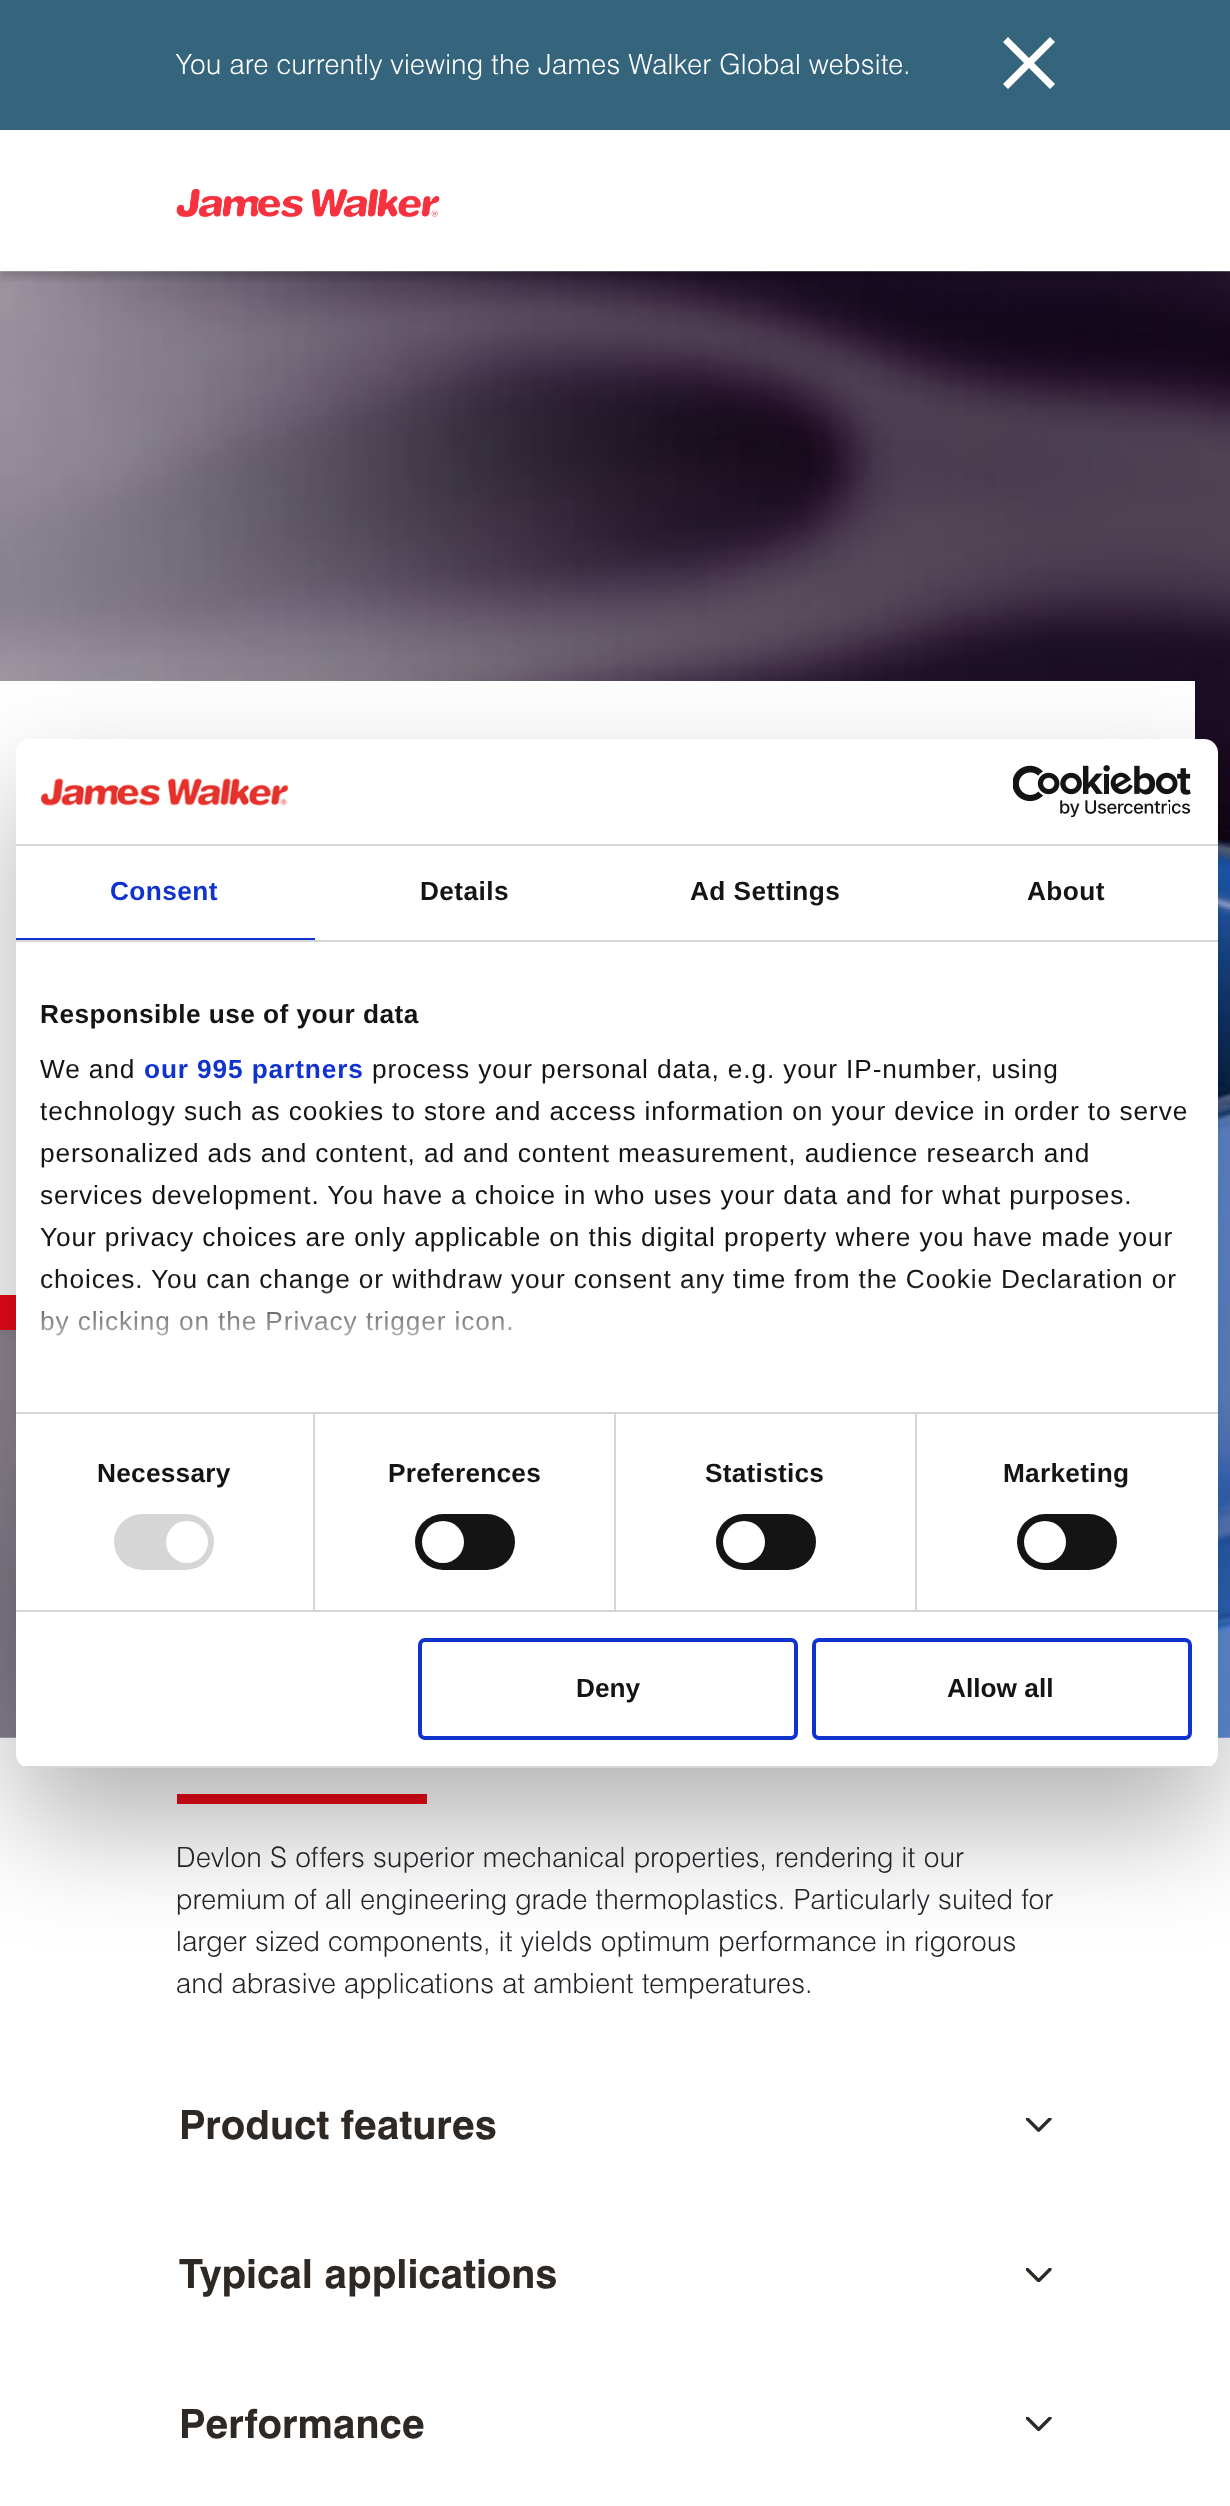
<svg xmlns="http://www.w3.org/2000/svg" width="1230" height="2506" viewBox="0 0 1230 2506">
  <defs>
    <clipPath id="clip1"><rect x="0" y="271" width="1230" height="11"/></clipPath>
    <linearGradient id="g1" gradientUnits="userSpaceOnUse" x1="605" y1="1412" x2="605" y2="1281"><stop offset="0" stop-color="rgb(255,255,255)"/><stop offset="0.5" stop-color="rgb(255,255,255)" stop-opacity="0.8"/><stop offset="1" stop-color="rgb(255,255,255)" stop-opacity="0"/></linearGradient>
    <clipPath id="clip2"><rect x="16" y="739" width="1202" height="1029" rx="14"/></clipPath>
  </defs>
  <rect width="100%" height="100%" fill="rgb(255,255,255)"/>
  <image x="0" y="271" width="1230" height="1467" href="pic4.png"/>
  <g clip-path="url(#clip1)">
    <rect x="0" y="137" width="1230" height="141" fill="rgba(0,0,0,0.15)" filter="blur(3.5px)"/>
  </g>
  <rect x="0" y="0" width="1230" height="130" fill="rgb(53,100,125)"/>
  <text x="176" y="74" font-family="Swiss" font-size="28" font-weight="300" letter-spacing="0.42" fill="rgb(255,255,255)">You are currently viewing the James Walker Global website.</text>
  <path d="M1055 42L1050 37L1029 58L1008 37L1003 42L1024 63L1003 84L1008 89L1029 68L1050 89L1055 84L1034 63Z" fill="rgb(255,255,255)"/>
  <image x="176" y="189" width="264" height="28" href="pic1.png"/>
  <rect x="0" y="681" width="1195" height="614" fill="rgb(255,255,255)"/>
  <rect x="0" y="1295" width="16" height="35" fill="rgb(237,10,24)"/>
  <rect x="177" y="1794" width="250" height="10" fill="rgb(237,10,24)"/>
  <rect x="16" y="795" width="1202" height="1029" rx="14" fill="rgba(0,0,0,0.3)" filter="blur(59.5px)"/>
  <rect x="16" y="739" width="1202" height="1029" rx="14" fill="rgb(255,255,255)"/>
  <rect x="16" y="844" width="1202" height="2" fill="rgb(214,214,214)"/>
  <image x="41" y="778" width="247" height="28" href="pic2.png"/>
  <image x="1013" y="765" width="178" height="52" href="pic3.png"/>
  <rect x="16" y="940" width="1202" height="2" fill="rgb(214,214,214)"/>
  <rect x="16" y="938" width="299" height="2" fill="rgb(16,50,207)"/>
  <text x="110" y="900" font-family="Liberation Sans" font-size="26.25" font-weight="bold" letter-spacing="0.4" fill="rgb(16,50,207)">Consent</text>
  <g font-family="Liberation Sans" font-size="26.25" font-weight="bold" letter-spacing="0.4" fill="rgb(20,20,20)">
    <text x="420" y="900">Details</text>
    <text x="690" y="900">Ad Settings</text>
    <text x="1027" y="900">About</text>
  </g>
  <rect x="16" y="1412" width="1202" height="2" fill="rgb(214,214,214)"/>
  <text x="40" y="1023" font-family="Liberation Sans" font-size="26.25" font-weight="bold" letter-spacing="0.45" fill="rgb(20,20,20)">Responsible use of your data</text>
  <text x="40" y="1078" font-family="Liberation Sans" font-size="26.25" letter-spacing="0.88" fill="rgb(20,20,20)">We and</text>
  <text x="144" y="1078" font-family="Liberation Sans" font-size="26.25" font-weight="bold" letter-spacing="0.88" fill="rgb(16,50,207)">our 995 partners</text>
  <g font-family="Liberation Sans" font-size="26.25" letter-spacing="0.88" fill="rgb(20,20,20)">
    <text x="372" y="1078">process your personal data, e.g. your IP-number, using</text>
    <text>
      <tspan x="40" y="1120">technology such as cookies to store and access information on your device in order to serve</tspan>
      <tspan x="40" y="1162">personalized ads and content, ad and content measurement, audience research and</tspan>
      <tspan x="40" y="1204">services development. You have a choice in who uses your data and for what purposes.</tspan>
      <tspan x="40" y="1246">Your privacy choices are only applicable on this digital property where you have made your</tspan>
      <tspan x="40" y="1288">choices. You can change or withdraw your consent any time from the Cookie Declaration or</tspan>
      <tspan x="40" y="1330">by clicking on the Privacy trigger icon.</tspan>
    </text>
  </g>
  <rect x="41" y="1283" width="1130" height="53" fill="url(#g1)"/>
  <rect x="16" y="1610" width="1202" height="2" fill="rgb(214,214,214)"/>
  <rect x="313" y="1414" width="2" height="196" fill="rgb(214,214,214)"/>
  <text x="97" y="1482" font-family="Liberation Sans" font-size="26.25" font-weight="bold" letter-spacing="0.25" fill="rgb(20,20,20)">Necessary</text>
  <rect x="114" y="1514" width="100" height="56" rx="28" fill="rgb(214,214,214)"/>
  <circle cx="187" cy="1542" r="21" fill="rgb(255,255,255)"/>
  <rect x="614" y="1414" width="2" height="196" fill="rgb(214,214,214)"/>
  <text x="388" y="1482" font-family="Liberation Sans" font-size="26.25" font-weight="bold" letter-spacing="0.25" fill="rgb(20,20,20)">Preferences</text>
  <rect x="415" y="1514" width="100" height="56" rx="28" fill="rgb(20,20,20)"/>
  <circle cx="443" cy="1542" r="21" fill="rgb(255,255,255)"/>
  <rect x="915" y="1414" width="2" height="196" fill="rgb(214,214,214)"/>
  <text x="705" y="1482" font-family="Liberation Sans" font-size="26.25" font-weight="bold" letter-spacing="0.25" fill="rgb(20,20,20)">Statistics</text>
  <rect x="716" y="1514" width="100" height="56" rx="28" fill="rgb(20,20,20)"/>
  <circle cx="744" cy="1542" r="21" fill="rgb(255,255,255)"/>
  <text x="1003" y="1482" font-family="Liberation Sans" font-size="26.25" font-weight="bold" letter-spacing="0.25" fill="rgb(20,20,20)">Marketing</text>
  <rect x="1017" y="1514" width="100" height="56" rx="28" fill="rgb(20,20,20)"/>
  <circle cx="1045" cy="1542" r="21" fill="rgb(255,255,255)"/>
  <g clip-path="url(#clip2)">
    <rect x="16" y="1766" width="1202" height="2" fill="rgb(214,214,214)"/>
  </g>
  <rect x="420" y="1640" width="376" height="98" rx="5" fill="none" stroke="rgb(16,50,207)" stroke-width="4"/>
  <text x="576" y="1697" font-family="Liberation Sans" font-size="26.25" font-weight="bold" fill="rgb(20,20,20)">Deny</text>
  <rect x="814" y="1640" width="376" height="98" rx="5" fill="none" stroke="rgb(16,50,207)" stroke-width="4"/>
  <text x="947" y="1697" font-family="Liberation Sans" font-size="26.25" font-weight="bold" fill="rgb(20,20,20)">Allow all</text>
  <g font-family="Swiss" font-size="28" font-weight="300" letter-spacing="0.42" fill="rgb(33,37,41)">
    <text>
      <tspan x="176" y="1867">Devlon S offers superior mechanical properties, rendering it our</tspan>
      <tspan x="176" y="1909">premium of all engineering grade thermoplastics. Particularly suited for</tspan>
      <tspan x="176" y="1951">larger sized components, it yields optimum performance in rigorous</tspan>
      <tspan x="176" y="1993">and abrasive applications at ambient temperatures.</tspan>
    </text>
  </g>
  <text x="179" y="2139" font-family="Swiss" font-size="40.25" font-weight="bold" fill="rgb(46,41,37)">Product features</text>
  <image x="1026" y="2118" width="26" height="14" href="pic5.png"/>
  <text x="179" y="2288" font-family="Swiss" font-size="40.25" font-weight="bold" fill="rgb(46,41,37)">Typical applications</text>
  <image x="1026" y="2268" width="26" height="14" href="pic6.png"/>
  <text x="179" y="2438" font-family="Swiss" font-size="40.25" font-weight="bold" fill="rgb(46,41,37)">Performance</text>
  <image x="1026" y="2417" width="26" height="15" href="pic7.png"/>
</svg>
